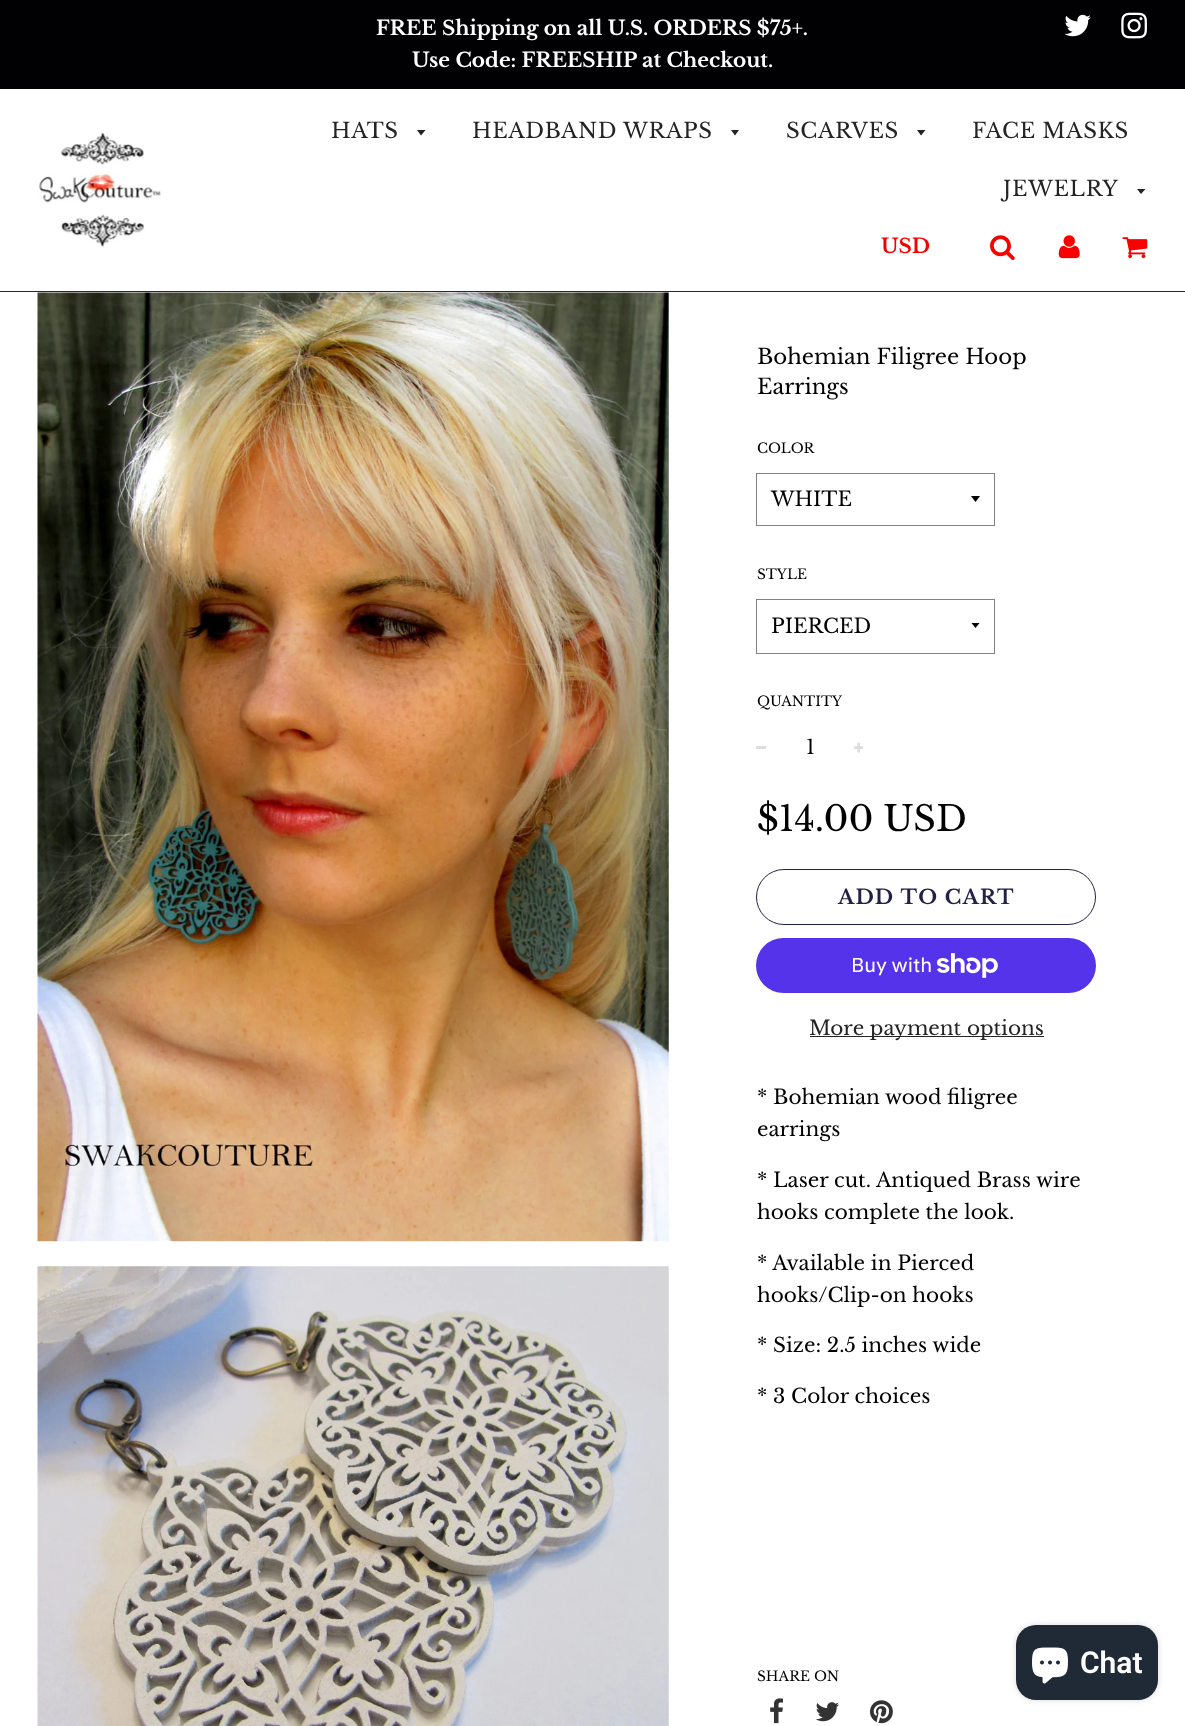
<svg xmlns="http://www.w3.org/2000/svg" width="1185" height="1726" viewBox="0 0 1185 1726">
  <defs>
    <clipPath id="clip1"><rect x="971" y="623" width="10" height="6"/></clipPath>
  </defs>
  <rect width="100%" height="100%" fill="rgb(255,255,255)"/>
  <rect x="0" y="0" width="1185" height="89" fill="rgb(1,1,3)"/>
  <g font-family="Libre Baskerville" font-size="20" font-weight="bold" fill="rgb(255,255,255)">
    <text x="376" y="35">FREE Shipping on all U.S. ORDERS $75+.</text>
    <text x="412" y="67">Use Code: FREESHIP at Checkout.</text>
  </g>
  <image x="1064" y="14" width="27" height="23" href="pic1.png"/>
  <image x="1121" y="12" width="26" height="27" href="pic2.png"/>
  <rect x="0" y="291" width="1185" height="1" fill="rgb(40,40,40)"/>
  <image x="38" y="133" width="123" height="114" href="pic3.png"/>
  <text x="331" y="138" font-family="Libre Baskerville" font-size="21.25" letter-spacing="0.6" fill="rgb(36,36,36)">HATS</text>
  <path d="M417 130L421 135.5L425.5 130Z" fill="rgb(36,36,36)"/>
  <text x="472" y="138" font-family="Libre Baskerville" font-size="21.25" letter-spacing="0.6" fill="rgb(36,36,36)">HEADBAND WRAPS</text>
  <path d="M731 130L735 135.5L739 130Z" fill="rgb(36,36,36)"/>
  <text x="786" y="138" font-family="Libre Baskerville" font-size="21.25" letter-spacing="0.6" fill="rgb(36,36,36)">SCARVES</text>
  <path d="M917 130L921 135.5L925.5 130Z" fill="rgb(36,36,36)"/>
  <g font-family="Libre Baskerville" font-size="21.25" letter-spacing="0.6" fill="rgb(36,36,36)">
    <text x="972" y="138">FACE MASKS</text>
    <text x="1003" y="196">JEWELRY</text>
  </g>
  <path d="M1137 189L1141 194L1145.5 189Z" fill="rgb(36,36,36)"/>
  <text x="881" y="253" font-family="Libre Baskerville" font-size="20" font-weight="bold" fill="rgb(248,0,0)">USD</text>
  <image x="990" y="235" width="25" height="25" href="pic4.png"/>
  <image x="1058" y="235" width="22" height="24" href="pic5.png"/>
  <image x="1122" y="237" width="26" height="22" href="pic6.png"/>
  <image x="37" y="292" width="632" height="950" href="pic7.png"/>
  <image x="37" y="1266" width="632" height="460" href="pic8.png"/>
  <g font-family="Libre Baskerville" font-size="21.25" fill="rgb(0,0,0)">
    <text>
      <tspan x="757" y="364">Bohemian Filigree Hoop</tspan>
      <tspan x="757" y="394">Earrings</tspan>
    </text>
  </g>
  <text x="757" y="453" font-family="Libre Baskerville" font-size="13.75" fill="rgb(0,0,0)">COLOR</text>
  <path d="M971 496L975.5 502L980 496Z" fill="rgb(0,0,0)"/>
  <rect x="756.5" y="473.5" width="238" height="52" fill="none" stroke="rgb(128,128,128)"/>
  <text x="771" y="506" font-family="Libre Baskerville" font-size="20" fill="rgb(0,0,0)">WHITE</text>
  <text x="757" y="579" font-family="Libre Baskerville" font-size="13.75" fill="rgb(0,0,0)">STYLE</text>
  <g clip-path="url(#clip1)">
    <path d="M971 622.5L975.5 628L980 622.5Z" fill="rgb(0,0,0)"/>
  </g>
  <rect x="756.5" y="599.5" width="238" height="54" fill="none" stroke="rgb(128,128,128)"/>
  <text x="771" y="633" font-family="Libre Baskerville" font-size="20" fill="rgb(0,0,0)">PIERCED</text>
  <text x="757" y="706" font-family="Libre Baskerville" font-size="13.75" fill="rgb(0,0,0)">QUANTITY</text>
  <rect x="756" y="746" width="10" height="3" fill="rgb(222,222,222)"/>
  <text x="806" y="754" font-family="Libre Baskerville" font-size="20" fill="rgb(0,0,0)">1</text>
  <image x="854" y="742" width="9" height="11" href="pic9.png"/>
  <text x="757" y="831" font-family="Libre Baskerville" font-size="35" fill="rgb(0,0,0)">$14.00 USD</text>
  <rect x="756.5" y="869.5" width="339" height="55" rx="27.5" fill="none" stroke="rgb(34,34,70)"/>
  <text x="838" y="904" font-family="Libre Baskerville" font-size="20" font-weight="bold" letter-spacing="1.25" fill="rgb(34,34,70)">ADD TO CART</text>
  <rect x="756" y="938" width="340" height="55" rx="27.5" fill="rgb(84,51,235)"/>
  <text x="851" y="972" font-family="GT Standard" font-size="20" fill="rgb(255,255,255)">Buy with</text>
  <image x="936" y="953" width="62" height="25" href="pic10.png"/>
  <rect x="810" y="1036" width="234" height="1" fill="rgb(36,36,36)"/>
  <text x="809" y="1035" font-family="Libre Baskerville" font-size="20" fill="rgb(36,36,36)">More payment options</text>
  <g font-family="Libre Baskerville" font-size="20" fill="rgb(0,0,0)">
    <text>
      <tspan x="757" y="1104">* Bohemian wood filigree</tspan>
      <tspan x="757" y="1136">earrings</tspan>
    </text>
    <text>
      <tspan x="757" y="1187">* Laser cut. Antiqued Brass wire</tspan>
      <tspan x="757" y="1219">hooks complete the look.</tspan>
    </text>
    <text>
      <tspan x="757" y="1270">* Available in Pierced</tspan>
      <tspan x="757" y="1302">hooks/Clip-on hooks</tspan>
    </text>
    <text x="757" y="1352">* Size: 2.5 inches wide</text>
    <text x="757" y="1403">* 3 Color choices</text>
  </g>
  <text x="757" y="1681" font-family="Libre Baskerville" font-size="13.75" fill="rgb(0,0,0)">SHARE ON</text>
  <image x="770" y="1698" width="13" height="26" href="pic11.png"/>
  <image x="815" y="1702" width="24" height="20" href="pic12.png"/>
  <image x="870" y="1700" width="23" height="24" href="pic13.png"/>
  <rect x="1016" y="1625" width="142" height="75" rx="20" fill="rgba(0,0,0,0.15)" filter="blur(3px)"/>
  <rect x="1016" y="1625" width="142" height="75" rx="20" fill="rgb(32,42,54)"/>
  <image x="1032" y="1647" width="36" height="37" href="pic14.png"/>
  <text x="1080" y="1673" font-family="Roboto" font-size="30" font-weight="600" fill="rgb(255,255,255)">Chat</text>
</svg>
